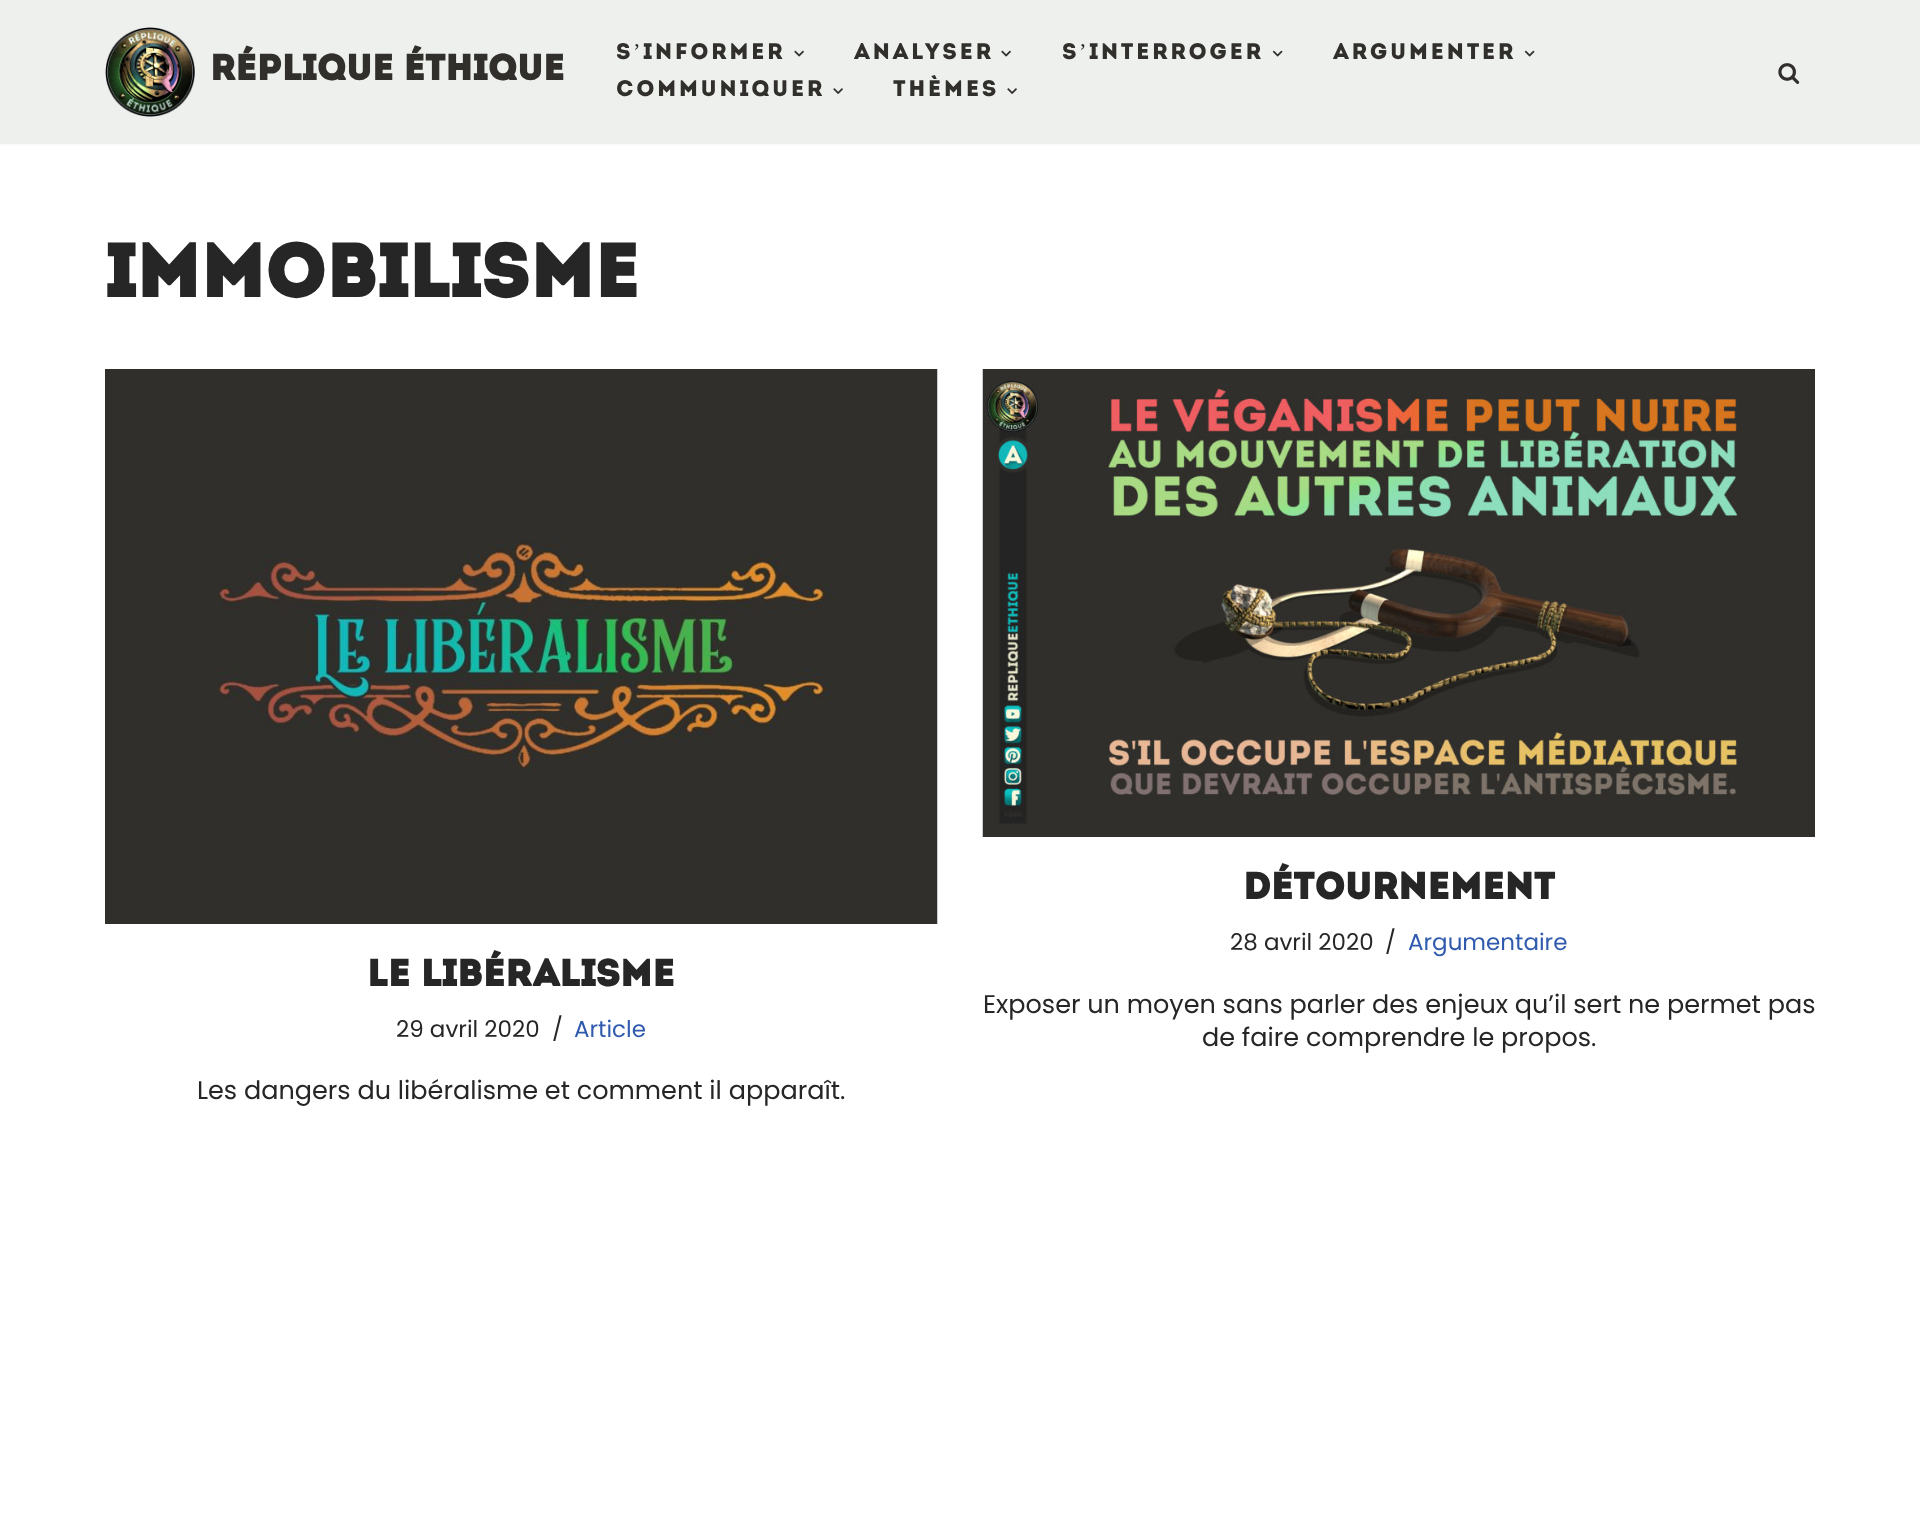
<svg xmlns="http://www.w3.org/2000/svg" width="1920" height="1534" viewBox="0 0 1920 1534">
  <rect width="100%" height="100%" fill="rgb(255,255,255)"/>
  <rect x="0" y="-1" width="1920" height="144" fill="rgba(0,0,0,0.1)" filter="blur(2px)"/>
  <rect x="0" y="0" width="1920" height="144" fill="rgb(238,240,237)"/>
  <image x="105" y="27" width="90" height="90" href="pic1.png"/>
  <text x="210" y="80" font-family="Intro" font-size="36" font-weight="bold" fill="rgb(48,47,43)">Réplique Éthique</text>
  <text x="616" y="59" font-family="Intro" font-size="22.5" letter-spacing="2.5" fill="rgb(48,47,43)">S</text>
  <text x="633" y="59" font-family="Liberation Serif" font-size="22.5" letter-spacing="2.5" fill="rgb(48,47,43)">’</text>
  <text x="643" y="59" font-family="Intro" font-size="22.5" letter-spacing="2.5" fill="rgb(48,47,43)">INFORMER</text>
  <image x="794" y="50" width="10" height="7" href="pic2.png"/>
  <text x="854" y="59" font-family="Intro" font-size="22.5" letter-spacing="2.5" fill="rgb(48,47,43)">ANALYSER</text>
  <image x="1001" y="50" width="10" height="7" href="pic2.png"/>
  <text x="1062" y="59" font-family="Intro" font-size="22.5" letter-spacing="2.5" fill="rgb(48,47,43)">S</text>
  <text x="1079" y="59" font-family="Liberation Serif" font-size="22.5" letter-spacing="2.5" fill="rgb(48,47,43)">’</text>
  <text x="1089" y="59" font-family="Intro" font-size="22.5" letter-spacing="2.5" fill="rgb(48,47,43)">INTERROGER</text>
  <image x="1272" y="50" width="11" height="7" href="pic3.png"/>
  <text x="1333" y="59" font-family="Intro" font-size="22.5" letter-spacing="2.5" fill="rgb(48,47,43)">ARGUMENTER</text>
  <image x="1524" y="50" width="11" height="7" href="pic3.png"/>
  <text x="616" y="96" font-family="Intro" font-size="22.5" letter-spacing="2.5" fill="rgb(48,47,43)">COMMUNIQUER</text>
  <image x="833" y="88" width="10" height="6" href="pic4.png"/>
  <text x="893" y="96" font-family="Intro" font-size="22.5" letter-spacing="2.5" fill="rgb(48,47,43)">THÈMES</text>
  <image x="1007" y="88" width="10" height="6" href="pic4.png"/>
  <image x="1778" y="63" width="22" height="21" href="pic5.png"/>
  <text x="105" y="297" font-family="Intro" font-size="75" font-weight="bold" fill="rgb(39,38,38)">Immobilisme</text>
  <image x="105" y="369" width="833" height="555" href="pic6.png"/>
  <text x="367" y="986" font-family="Intro" font-size="37.5" font-weight="bold" fill="rgb(39,38,38)">Le libéralisme</text>
  <g font-family="Poppins" font-size="23" fill="rgb(39,38,38)">
    <text x="396" y="1037">29 avril 2020</text>
    <text x="552" y="1037">/</text>
  </g>
  <text x="574" y="1037" font-family="Poppins" font-size="23" fill="rgb(47,90,174)">Article</text>
  <text x="197" y="1099" font-family="Poppins" font-size="25.5" fill="rgb(39,38,38)">Les dangers du libéralisme et comment il apparaît.</text>
  <image x="982" y="369" width="833" height="468" href="pic7.png"/>
  <text x="1243" y="899" font-family="Intro" font-size="37.5" font-weight="bold" fill="rgb(39,38,38)">Détournement</text>
  <g font-family="Poppins" font-size="23" fill="rgb(39,38,38)">
    <text x="1230" y="950">28 avril 2020</text>
    <text x="1385" y="950">/</text>
  </g>
  <text x="1408" y="950" font-family="Poppins" font-size="23" fill="rgb(47,90,174)">Argumentaire</text>
  <g font-family="Poppins" font-size="25.5" fill="rgb(39,38,38)">
    <text x="983" y="1013">Exposer un moyen sans parler des enjeux qu’il sert ne permet pas</text>
    <text x="1202" y="1046">de faire comprendre le propos.</text>
  </g>
</svg>
